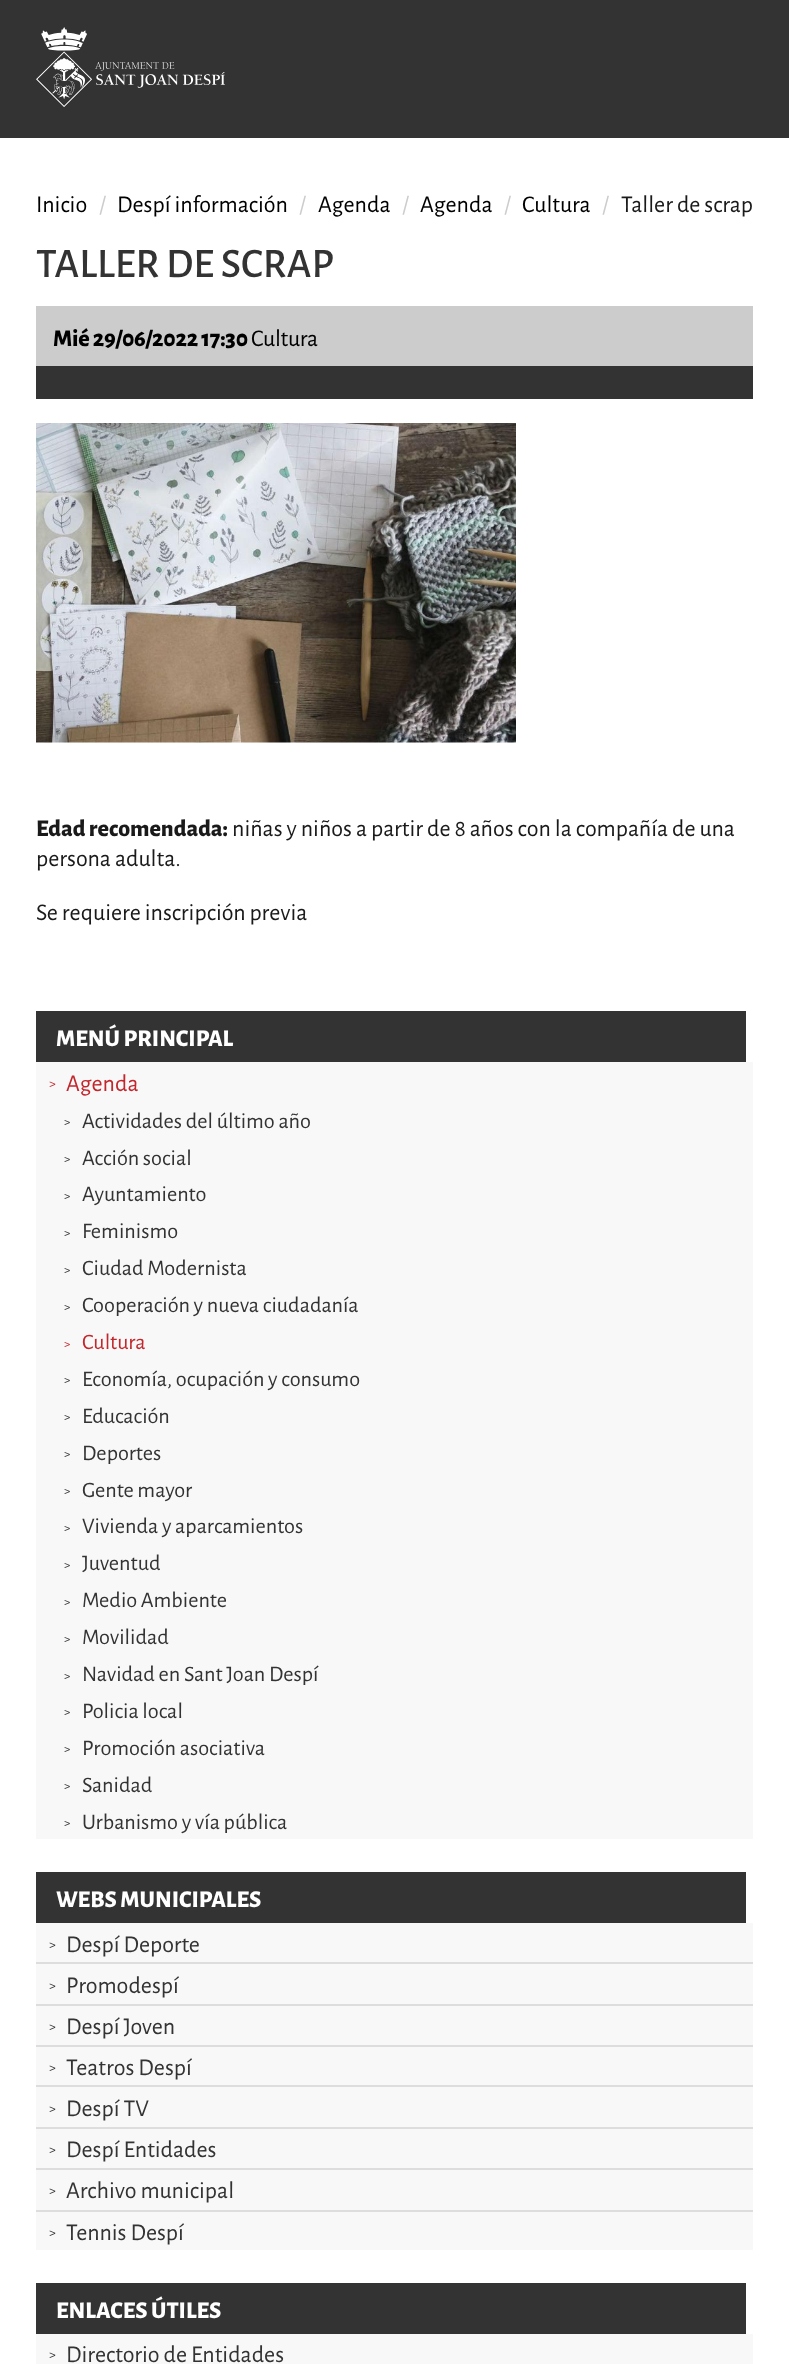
<svg xmlns="http://www.w3.org/2000/svg" width="789" height="2364" viewBox="0 0 789 2364">
  <rect width="100%" height="100%" fill="rgb(255,255,255)"/>
  <rect x="0" y="0" width="789" height="138" fill="rgb(51,51,51)"/>
  <image x="36" y="27" width="189" height="80" href="pic1.png"/>
  <text x="36" y="212" font-family="Alegreya Sans" font-size="24" fill="rgb(0,0,0)">Inicio</text>
  <text x="99" y="212" font-family="Alegreya Sans" font-size="24" fill="rgb(204,204,204)">/</text>
  <text x="117" y="212" font-family="Alegreya Sans" font-size="24" fill="rgb(0,0,0)">Despí información</text>
  <text x="299" y="212" font-family="Alegreya Sans" font-size="24" fill="rgb(204,204,204)">/</text>
  <text x="318" y="212" font-family="Alegreya Sans" font-size="24" fill="rgb(0,0,0)">Agenda</text>
  <text x="402" y="212" font-family="Alegreya Sans" font-size="24" fill="rgb(204,204,204)">/</text>
  <text x="420" y="212" font-family="Alegreya Sans" font-size="24" fill="rgb(0,0,0)">Agenda</text>
  <text x="504" y="212" font-family="Alegreya Sans" font-size="24" fill="rgb(204,204,204)">/</text>
  <text x="522" y="212" font-family="Alegreya Sans" font-size="24" fill="rgb(0,0,0)">Cultura</text>
  <text x="602" y="212" font-family="Alegreya Sans" font-size="24" fill="rgb(204,204,204)">/</text>
  <text x="621" y="212" font-family="Alegreya Sans" font-size="24" fill="rgb(26,26,26)">Taller de scrap</text>
  <text x="36" y="277" font-family="Alegreya Sans" font-size="42" font-weight="500" fill="rgb(51,51,51)">TALLER DE SCRAP</text>
  <rect x="36" y="306" width="717" height="60" fill="rgb(204,204,204)"/>
  <text x="53" y="346" font-family="Alegreya Sans" font-size="24" font-weight="800" letter-spacing="-0.25" fill="rgb(0,0,0)">Mié 29/06/2022 17:30</text>
  <text x="251" y="346" font-family="Alegreya Sans" font-size="24" letter-spacing="-0.25" fill="rgb(0,0,0)">Cultura</text>
  <rect x="36" y="366" width="717" height="33" fill="rgb(51,51,51)"/>
  <image x="36" y="423" width="480" height="320" href="pic2.png"/>
  <text x="36" y="836" font-family="Alegreya Sans" font-size="24" font-weight="800" fill="rgb(26,26,26)">Edad recomendada:</text>
  <g font-family="Alegreya Sans" font-size="24" fill="rgb(26,26,26)">
    <text x="232" y="836">niñas y niños a partir de 8 años con la compañía de una</text>
    <text x="36" y="866">persona adulta.</text>
    <text x="36" y="920">Se requiere inscripción previa</text>
  </g>
  <rect x="36" y="1011" width="710" height="51" fill="rgb(51,51,51)"/>
  <text x="56" y="1046" font-family="Alegreya Sans" font-size="24" font-weight="800" fill="rgb(255,255,255)">MENÚ PRINCIPAL</text>
  <rect x="36" y="1062" width="717" height="777" fill="rgb(248,248,248)"/>
  <text x="49" y="1088" font-family="Alegreya Sans" font-size="14" fill="rgb(193,39,45)">&gt;</text>
  <text x="66" y="1091" font-family="Alegreya Sans" font-size="24" fill="rgb(193,39,45)">Agenda</text>
  <text x="64" y="1126" font-family="Alegreya Sans" font-size="13" fill="rgb(51,51,51)">&gt;</text>
  <text x="82" y="1128" font-family="Alegreya Sans" font-size="22.25" fill="rgb(51,51,51)">Actividades del último año</text>
  <text x="64" y="1163" font-family="Alegreya Sans" font-size="13" fill="rgb(51,51,51)">&gt;</text>
  <text x="82" y="1165" font-family="Alegreya Sans" font-size="22.25" fill="rgb(51,51,51)">Acción social</text>
  <text x="64" y="1200" font-family="Alegreya Sans" font-size="13" fill="rgb(51,51,51)">&gt;</text>
  <text x="82" y="1201" font-family="Alegreya Sans" font-size="22.25" fill="rgb(51,51,51)">Ayuntamiento</text>
  <text x="64" y="1237" font-family="Alegreya Sans" font-size="13" fill="rgb(51,51,51)">&gt;</text>
  <text x="82" y="1238" font-family="Alegreya Sans" font-size="22.25" fill="rgb(51,51,51)">Feminismo</text>
  <text x="64" y="1274" font-family="Alegreya Sans" font-size="13" fill="rgb(51,51,51)">&gt;</text>
  <text x="82" y="1275" font-family="Alegreya Sans" font-size="22.25" fill="rgb(51,51,51)">Ciudad Modernista</text>
  <text x="64" y="1311" font-family="Alegreya Sans" font-size="13" fill="rgb(51,51,51)">&gt;</text>
  <text x="82" y="1312" font-family="Alegreya Sans" font-size="22.25" fill="rgb(51,51,51)">Cooperación y nueva ciudadanía</text>
  <text x="64" y="1348" font-family="Alegreya Sans" font-size="13" fill="rgb(193,39,45)">&gt;</text>
  <text x="82" y="1349" font-family="Alegreya Sans" font-size="22.25" fill="rgb(193,39,45)">Cultura</text>
  <text x="64" y="1384" font-family="Alegreya Sans" font-size="13" fill="rgb(51,51,51)">&gt;</text>
  <text x="82" y="1386" font-family="Alegreya Sans" font-size="22.25" fill="rgb(51,51,51)">Economía, ocupación y consumo</text>
  <text x="64" y="1421" font-family="Alegreya Sans" font-size="13" fill="rgb(51,51,51)">&gt;</text>
  <text x="82" y="1423" font-family="Alegreya Sans" font-size="22.25" fill="rgb(51,51,51)">Educación</text>
  <text x="64" y="1458" font-family="Alegreya Sans" font-size="13" fill="rgb(51,51,51)">&gt;</text>
  <text x="82" y="1460" font-family="Alegreya Sans" font-size="22.25" fill="rgb(51,51,51)">Deportes</text>
  <text x="64" y="1495" font-family="Alegreya Sans" font-size="13" fill="rgb(51,51,51)">&gt;</text>
  <text x="82" y="1497" font-family="Alegreya Sans" font-size="22.25" fill="rgb(51,51,51)">Gente mayor</text>
  <text x="64" y="1532" font-family="Alegreya Sans" font-size="13" fill="rgb(51,51,51)">&gt;</text>
  <text x="82" y="1533" font-family="Alegreya Sans" font-size="22.25" fill="rgb(51,51,51)">Vivienda y aparcamientos</text>
  <text x="64" y="1569" font-family="Alegreya Sans" font-size="13" fill="rgb(51,51,51)">&gt;</text>
  <text x="82" y="1570" font-family="Alegreya Sans" font-size="22.25" fill="rgb(51,51,51)">Juventud</text>
  <text x="64" y="1606" font-family="Alegreya Sans" font-size="13" fill="rgb(51,51,51)">&gt;</text>
  <text x="82" y="1607" font-family="Alegreya Sans" font-size="22.25" fill="rgb(51,51,51)">Medio Ambiente</text>
  <text x="64" y="1643" font-family="Alegreya Sans" font-size="13" fill="rgb(51,51,51)">&gt;</text>
  <text x="82" y="1644" font-family="Alegreya Sans" font-size="22.25" fill="rgb(51,51,51)">Movilidad</text>
  <text x="64" y="1680" font-family="Alegreya Sans" font-size="13" fill="rgb(51,51,51)">&gt;</text>
  <text x="82" y="1681" font-family="Alegreya Sans" font-size="22.25" fill="rgb(51,51,51)">Navidad en Sant Joan Despí</text>
  <text x="64" y="1716" font-family="Alegreya Sans" font-size="13" fill="rgb(51,51,51)">&gt;</text>
  <text x="82" y="1718" font-family="Alegreya Sans" font-size="22.25" fill="rgb(51,51,51)">Policia local</text>
  <text x="64" y="1753" font-family="Alegreya Sans" font-size="13" fill="rgb(51,51,51)">&gt;</text>
  <text x="82" y="1755" font-family="Alegreya Sans" font-size="22.25" fill="rgb(51,51,51)">Promoción asociativa</text>
  <text x="64" y="1790" font-family="Alegreya Sans" font-size="13" fill="rgb(51,51,51)">&gt;</text>
  <text x="82" y="1792" font-family="Alegreya Sans" font-size="22.25" fill="rgb(51,51,51)">Sanidad</text>
  <text x="64" y="1827" font-family="Alegreya Sans" font-size="13" fill="rgb(51,51,51)">&gt;</text>
  <text x="82" y="1829" font-family="Alegreya Sans" font-size="22.25" fill="rgb(51,51,51)">Urbanismo y vía pública</text>
  <rect x="36" y="1872" width="710" height="51" fill="rgb(51,51,51)"/>
  <text x="56" y="1907" font-family="Alegreya Sans" font-size="24" font-weight="800" fill="rgb(255,255,255)">WEBS MUNICIPALES</text>
  <rect x="36" y="1923" width="717" height="327" fill="rgb(248,248,248)"/>
  <rect x="36" y="1962" width="717" height="2" fill="rgb(221,221,221)"/>
  <text x="49" y="1949" font-family="Alegreya Sans" font-size="14" fill="rgb(51,51,51)">&gt;</text>
  <text x="66" y="1952" font-family="Alegreya Sans" font-size="24" fill="rgb(51,51,51)">Despí Deporte</text>
  <rect x="36" y="2004" width="717" height="2" fill="rgb(221,221,221)"/>
  <text x="49" y="1990" font-family="Alegreya Sans" font-size="14" fill="rgb(51,51,51)">&gt;</text>
  <text x="66" y="1993" font-family="Alegreya Sans" font-size="24" fill="rgb(51,51,51)">Promodespí</text>
  <rect x="36" y="2045" width="717" height="2" fill="rgb(221,221,221)"/>
  <text x="49" y="2031" font-family="Alegreya Sans" font-size="14" fill="rgb(51,51,51)">&gt;</text>
  <text x="66" y="2034" font-family="Alegreya Sans" font-size="24" fill="rgb(51,51,51)">Despí Joven</text>
  <rect x="36" y="2085" width="717" height="2" fill="rgb(221,221,221)"/>
  <text x="49" y="2072" font-family="Alegreya Sans" font-size="14" fill="rgb(51,51,51)">&gt;</text>
  <text x="66" y="2075" font-family="Alegreya Sans" font-size="24" fill="rgb(51,51,51)">Teatros Despí</text>
  <rect x="36" y="2127" width="717" height="2" fill="rgb(221,221,221)"/>
  <text x="49" y="2113" font-family="Alegreya Sans" font-size="14" fill="rgb(51,51,51)">&gt;</text>
  <text x="66" y="2116" font-family="Alegreya Sans" font-size="24" fill="rgb(51,51,51)">Despí TV</text>
  <rect x="36" y="2168" width="717" height="2" fill="rgb(221,221,221)"/>
  <text x="49" y="2154" font-family="Alegreya Sans" font-size="14" fill="rgb(51,51,51)">&gt;</text>
  <text x="66" y="2157" font-family="Alegreya Sans" font-size="24" fill="rgb(51,51,51)">Despí Entidades</text>
  <rect x="36" y="2210" width="717" height="2" fill="rgb(221,221,221)"/>
  <text x="49" y="2195" font-family="Alegreya Sans" font-size="14" fill="rgb(51,51,51)">&gt;</text>
  <text x="66" y="2198" font-family="Alegreya Sans" font-size="24" fill="rgb(51,51,51)">Archivo municipal</text>
  <text x="49" y="2237" font-family="Alegreya Sans" font-size="14" fill="rgb(51,51,51)">&gt;</text>
  <text x="66" y="2240" font-family="Alegreya Sans" font-size="24" fill="rgb(51,51,51)">Tennis Despí</text>
  <rect x="36" y="2283" width="710" height="51" fill="rgb(51,51,51)"/>
  <text x="56" y="2318" font-family="Alegreya Sans" font-size="24" font-weight="800" fill="rgb(255,255,255)">ENLACES ÚTILES</text>
  <rect x="36" y="2334" width="717" height="30" fill="rgb(248,248,248)"/>
  <text x="49" y="2359" font-family="Alegreya Sans" font-size="14" fill="rgb(51,51,51)">&gt;</text>
  <text x="66" y="2362" font-family="Alegreya Sans" font-size="24" fill="rgb(51,51,51)">Directorio de Entidades</text>
</svg>
